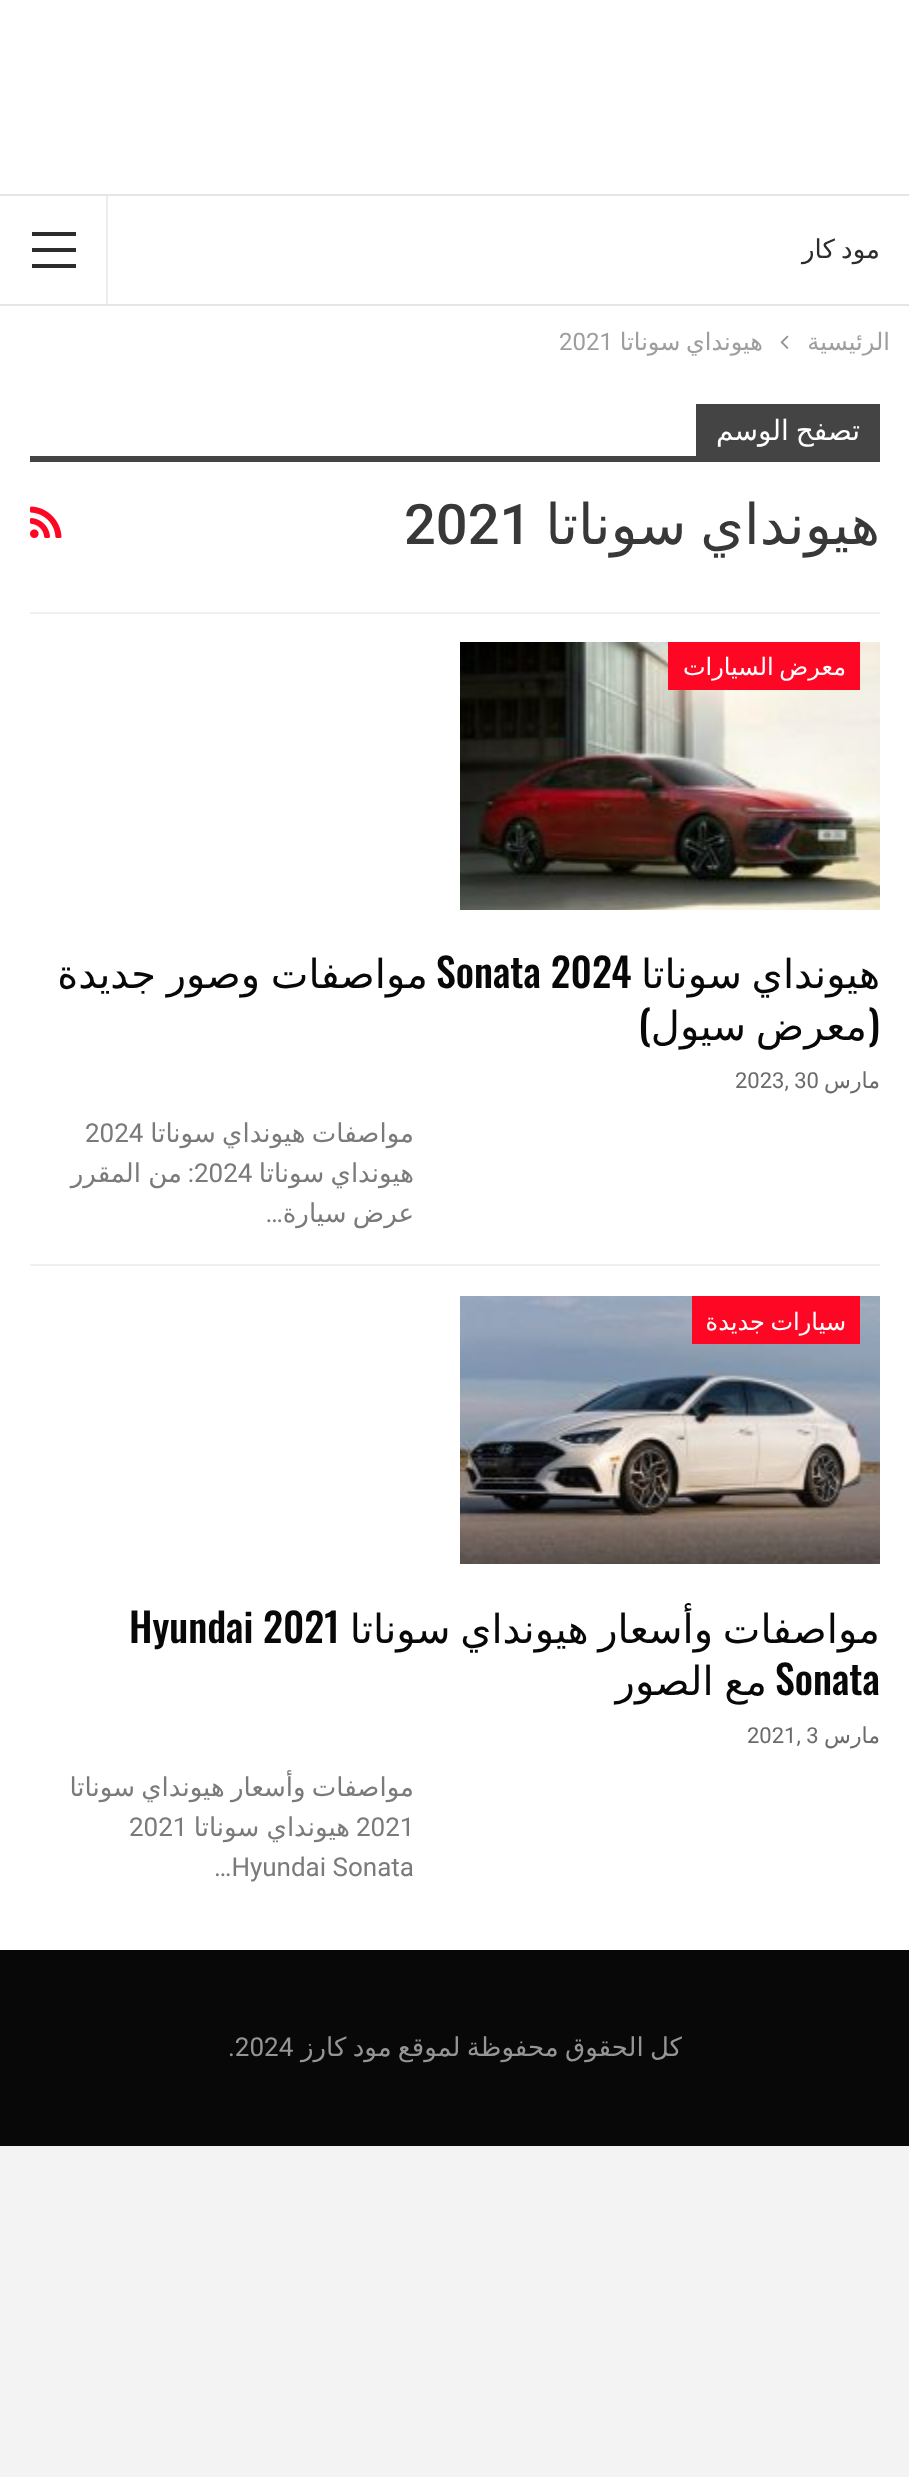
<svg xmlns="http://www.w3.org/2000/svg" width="909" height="2477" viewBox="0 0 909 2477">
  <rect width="100%" height="100%" fill="rgb(243,243,243)"/>
  <rect x="0" y="0" width="909" height="194" fill="rgb(255,255,255)"/>
  <rect x="0" y="196" width="909" height="108" fill="rgb(255,255,255)"/>
  <rect x="0" y="194" width="909" height="2" fill="rgb(229,229,229)"/>
  <rect x="0" y="304" width="909" height="2" fill="rgb(229,229,229)"/>
  <text x="880" y="258" word-spacing="-2" font-family="DejaVu Sans" font-size="26" direction="rtl" fill="rgb(44,44,44)">مود كار</text>
  <rect x="106" y="196" width="2" height="108" fill="rgb(237,237,237)"/>
  <rect x="32" y="248" width="44" height="4" fill="rgb(44,44,44)"/>
  <rect x="32" y="232" width="44" height="4" fill="rgb(44,44,44)"/>
  <rect x="32" y="264" width="44" height="4" fill="rgb(44,44,44)"/>
  <rect x="0" y="306" width="909" height="1644" fill="rgb(255,255,255)"/>
  <text x="890" y="350" font-family="DejaVu Sans" font-size="24" direction="rtl" fill="rgb(158,158,158)">الرئيسية</text>
  <image x="780" y="335" width="9" height="14" href="pic1.png"/>
  <text x="763" y="350" word-spacing="-2" font-family="DejaVu Sans" font-size="24" direction="rtl" fill="rgb(158,158,158)">هيونداي سوناتا</text>
  <text x="559" y="350" font-family="Roboto" font-size="24" fill="rgb(158,158,158)">2021</text>
  <rect x="30" y="612" width="850" height="2" fill="rgb(240,240,240)"/>
  <rect x="696" y="404" width="184" height="52" fill="rgb(68,68,68)"/>
  <text x="860" y="440" word-spacing="-2" font-family="DejaVu Sans" font-size="28" direction="rtl" fill="rgb(255,255,255)">تصفح الوسم</text>
  <rect x="30" y="456" width="850" height="6" fill="rgb(68,68,68)"/>
  <text x="880" y="544" word-spacing="-4" font-family="DejaVu Sans" font-size="56" direction="rtl" fill="rgb(56,56,56)">هيونداي سوناتا</text>
  <text x="404" y="544" font-family="Roboto" font-size="56" font-weight="500" fill="rgb(56,56,56)">2021</text>
  <image x="30" y="506" width="32" height="32" href="pic2.png"/>
  <rect x="30" y="1264" width="850" height="2" fill="rgb(240,240,240)"/>
  <image x="460" y="642" width="420" height="268" href="pic3.png"/>
  <rect x="668" y="642" width="192" height="48" fill="rgb(254,7,36)"/>
  <text x="846" y="675" word-spacing="-2" font-family="DejaVu Sans" font-size="24" direction="rtl" fill="rgb(255,255,255)">معرض السيارات</text>
  <text x="880" y="988" word-spacing="-3" font-family="DejaVu Sans" font-size="40" direction="rtl" fill="rgb(8,8,8)">هيونداي سوناتا</text>
  <text x="436" y="988" font-family="Oswald" font-size="40" font-weight="500" fill="rgb(8,8,8)">Sonata 2024</text>
  <text x="428" y="988" word-spacing="-2" font-family="DejaVu Sans" font-size="40" direction="rtl" fill="rgb(8,8,8)">مواصفات وصور جديدة</text>
  <text x="880" y="1040" font-family="Oswald" font-size="40" font-weight="500" direction="rtl" fill="rgb(8,8,8)">(</text>
  <text x="867" y="1040" word-spacing="-3" font-family="DejaVu Sans" font-size="40" direction="rtl" fill="rgb(8,8,8)">معرض سيول</text>
  <text x="651" y="1040" font-family="Oswald" font-size="40" font-weight="500" direction="rtl" fill="rgb(8,8,8)">)</text>
  <text x="880" y="1088" font-family="DejaVu Sans" font-size="22" direction="rtl" fill="rgb(107,107,107)">مارس</text>
  <text x="735" y="1088" font-family="Roboto" font-size="22" fill="rgb(107,107,107)">2023, 30</text>
  <text x="414" y="1142" word-spacing="-2" font-family="DejaVu Sans" font-size="26" direction="rtl" fill="rgb(122,122,122)">مواصفات هيونداي سوناتا</text>
  <text x="85" y="1142" font-family="Roboto" font-size="26" fill="rgb(122,122,122)">2024</text>
  <text x="414" y="1182" word-spacing="-2" font-family="DejaVu Sans" font-size="26" direction="rtl" fill="rgb(122,122,122)">هيونداي سوناتا</text>
  <text x="194" y="1182" font-family="Roboto" font-size="26" fill="rgb(122,122,122)">2024</text>
  <text x="194" y="1182" font-family="Roboto" font-size="26" direction="rtl" fill="rgb(122,122,122)">:</text>
  <g font-family="DejaVu Sans" font-size="26" direction="rtl" fill="rgb(122,122,122)">
    <text x="182" y="1182" word-spacing="-1">من المقرر</text>
    <text x="414" y="1222" word-spacing="-2">عرض سيارة</text>
  </g>
  <text x="283" y="1222" font-family="Roboto" font-size="26" direction="rtl" fill="rgb(122,122,122)">…</text>
  <image x="460" y="1296" width="420" height="268" href="pic4.png"/>
  <rect x="692" y="1296" width="168" height="48" fill="rgb(254,7,36)"/>
  <text x="846" y="1330" word-spacing="-2" font-family="DejaVu Sans" font-size="24" direction="rtl" fill="rgb(255,255,255)">سيارات جديدة</text>
  <text x="880" y="1643" word-spacing="-3" font-family="DejaVu Sans" font-size="40" direction="rtl" fill="rgb(8,8,8)">مواصفات وأسعار هيونداي سوناتا</text>
  <g font-family="Oswald" font-size="40" font-weight="500" fill="rgb(8,8,8)">
    <text x="129" y="1643">Hyundai 2021</text>
    <text x="775" y="1695">Sonata</text>
  </g>
  <text x="767" y="1695" word-spacing="-2" font-family="DejaVu Sans" font-size="40" direction="rtl" fill="rgb(8,8,8)">مع الصور</text>
  <text x="880" y="1743" font-family="DejaVu Sans" font-size="22" direction="rtl" fill="rgb(107,107,107)">مارس</text>
  <text x="747" y="1743" font-family="Roboto" font-size="22" fill="rgb(107,107,107)">2021, 3</text>
  <text x="414" y="1796" word-spacing="-2" font-family="DejaVu Sans" font-size="26" direction="rtl" fill="rgb(122,122,122)">مواصفات وأسعار هيونداي سوناتا</text>
  <text x="356" y="1836" font-family="Roboto" font-size="26" fill="rgb(122,122,122)">2021</text>
  <text x="350" y="1836" word-spacing="-1" font-family="DejaVu Sans" font-size="26" direction="rtl" fill="rgb(122,122,122)">هيونداي سوناتا</text>
  <g font-family="Roboto" font-size="26" fill="rgb(122,122,122)">
    <text x="129" y="1836">2021</text>
    <text x="214" y="1876">…Hyundai Sonata</text>
  </g>
  <rect x="0" y="1950" width="909" height="196" fill="rgb(8,8,8)"/>
  <text x="682" y="2056" word-spacing="-2" font-family="DejaVu Sans" font-size="26" direction="rtl" fill="rgb(149,149,149)">كل الحقوق محفوظة لموقع مود كارز</text>
  <text x="228" y="2056" font-family="Roboto" font-size="26" fill="rgb(149,149,149)">.2024</text>
</svg>
